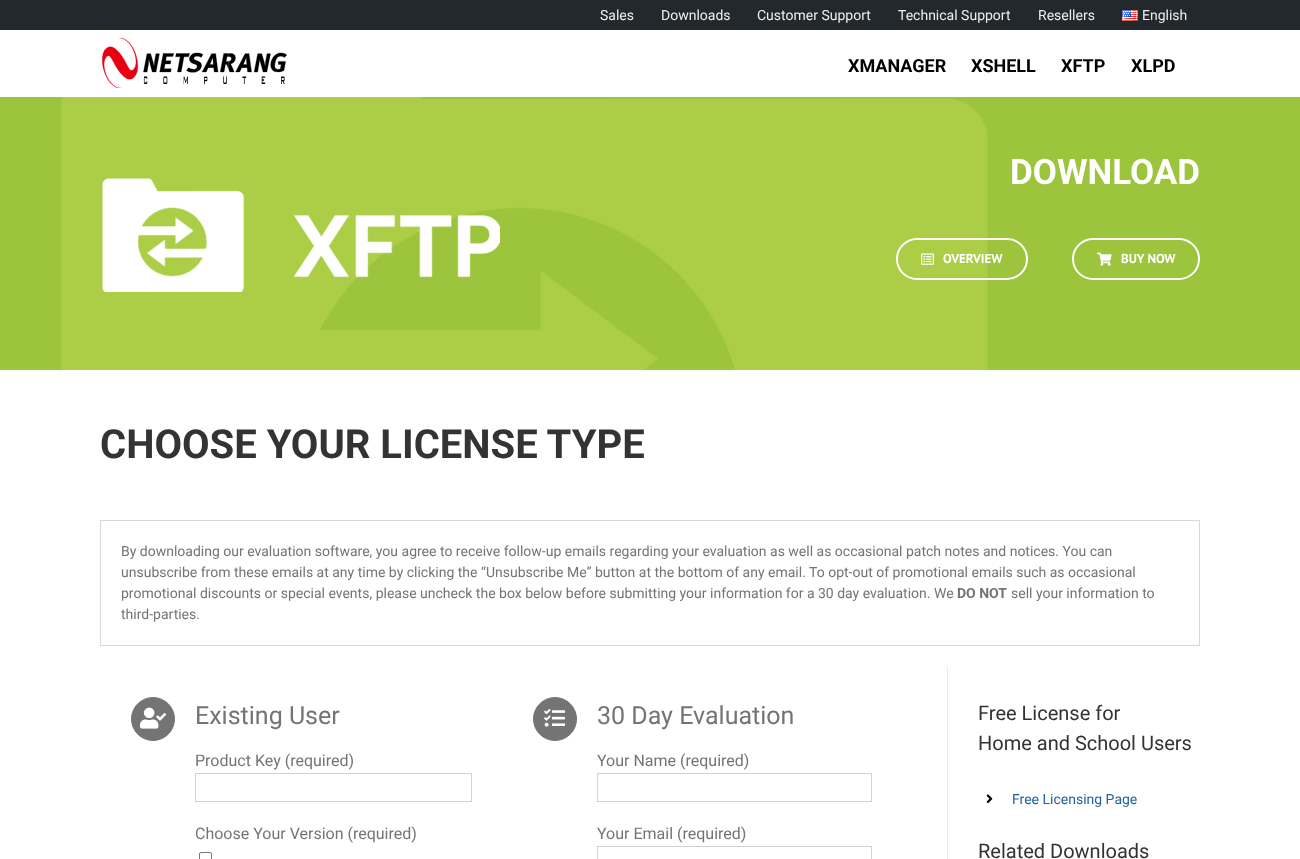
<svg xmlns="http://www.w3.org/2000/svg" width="1300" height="859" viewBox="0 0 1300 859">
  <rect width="100%" height="100%" fill="rgb(255,255,255)"/>
  <rect x="0" y="0" width="1300" height="30" fill="rgb(35,40,44)"/>
  <g font-family="Roboto" font-size="14" fill="rgb(238,238,238)">
    <text x="600" y="20">Sales</text>
    <text x="661" y="20">Downloads</text>
    <text x="757" y="20">Customer Support</text>
    <text x="898" y="20">Technical Support</text>
    <text x="1038" y="20">Resellers</text>
  </g>
  <image x="1122" y="10" width="16" height="11" href="pic1.png"/>
  <text x="1142" y="20" font-family="Roboto" font-size="14" fill="rgb(238,238,238)">English</text>
  <image x="101" y="38" width="186" height="50" href="pic2.png"/>
  <g font-family="Roboto" font-size="18" font-weight="bold" fill="rgb(0,0,0)">
    <text x="848" y="72">XMANAGER</text>
    <text x="971" y="72">XSHELL</text>
    <text x="1061" y="72">XFTP</text>
    <text x="1131" y="72">XLPD</text>
  </g>
  <image x="0" y="97" width="1300" height="273" href="pic3.png"/>
  <image x="102" y="178" width="398" height="114" href="pic4.png"/>
  <text x="1010" y="184" font-family="Roboto" font-size="35" font-weight="bold" fill="rgb(255,255,255)">DOWNLOAD</text>
  <rect x="897" y="239" width="130" height="40" rx="20" fill="none" stroke="rgb(255,255,255)" stroke-width="2"/>
  <image x="921" y="253" width="13" height="12" href="pic5.png"/>
  <text x="943" y="263" font-family="PT Sans" font-size="13" font-weight="bold" fill="rgb(255,255,255)">OVERVIEW</text>
  <rect x="1073" y="239" width="126" height="40" rx="20" fill="none" stroke="rgb(255,255,255)" stroke-width="2"/>
  <image x="1097" y="252" width="15" height="14" href="pic6.png"/>
  <text x="1121" y="263" font-family="PT Sans" font-size="13" font-weight="bold" fill="rgb(255,255,255)">BUY NOW</text>
  <text x="100" y="458" font-family="Roboto" font-size="40" font-weight="bold" fill="rgb(51,51,51)">CHOOSE YOUR LICENSE TYPE</text>
  <rect x="100.5" y="520.5" width="1099" height="125" fill="none" stroke="rgb(216,216,216)"/>
  <g font-family="Roboto" font-size="14" fill="rgb(116,116,116)">
    <text>
      <tspan x="121" y="556">By downloading our evaluation software, you agree to receive follow-up emails regarding your evaluation as well as occasional patch notes and notices. You can</tspan>
      <tspan x="121" y="577">unsubscribe from these emails at any time by clicking the “Unsubscribe Me” button at the bottom of any email. To opt-out of promotional emails such as occasional</tspan>
      <tspan x="121" y="598">promotional discounts or special events, please uncheck the box below before submitting your information for a 30 day evaluation. We</tspan>
    </text>
  </g>
  <text x="957" y="598" font-family="Roboto" font-size="14" font-weight="bold" fill="rgb(116,116,116)">DO NOT</text>
  <g font-family="Roboto" font-size="14" fill="rgb(116,116,116)">
    <text x="1011" y="598">sell your information to</text>
    <text x="121" y="619">third-parties.</text>
  </g>
  <circle cx="153" cy="719" r="21.5" fill="rgb(116,116,116)" stroke="rgb(116,116,116)"/>
  <image x="140" y="707" width="27" height="22" href="pic7.png"/>
  <text x="195" y="724" font-family="Roboto" font-size="25" fill="rgb(116,116,116)">Existing User</text>
  <text x="195" y="766" font-family="Roboto" font-size="16" fill="rgb(116,116,116)">Product Key (required)</text>
  <rect x="195.5" y="773.5" width="276" height="28" fill="none" stroke="rgb(210,210,210)"/>
  <text x="195" y="839" font-family="Roboto" font-size="16" fill="rgb(116,116,116)">Choose Your Version (required)</text>
  <rect x="199.5" y="852.5" width="12" height="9" rx="1.5" fill="none" stroke="rgb(118,118,118)"/>
  <circle cx="555" cy="719" r="21.5" fill="rgb(116,116,116)" stroke="rgb(116,116,116)"/>
  <image x="544" y="709" width="22" height="18" href="pic8.png"/>
  <text x="597" y="724" font-family="Roboto" font-size="25" fill="rgb(116,116,116)">30 Day Evaluation</text>
  <text x="597" y="766" font-family="Roboto" font-size="16" fill="rgb(116,116,116)">Your Name (required)</text>
  <rect x="597.5" y="773.5" width="274" height="28" fill="none" stroke="rgb(210,210,210)"/>
  <text x="597" y="839" font-family="Roboto" font-size="16" fill="rgb(116,116,116)">Your Email (required)</text>
  <rect x="597.5" y="846.5" width="274" height="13" fill="none" stroke="rgb(210,210,210)"/>
  <rect x="947" y="666" width="1" height="193" fill="rgb(237,237,237)"/>
  <g font-family="Roboto" font-size="20" fill="rgb(51,51,51)">
    <text>
      <tspan x="978" y="720">Free License for</tspan>
      <tspan x="978" y="750">Home and School Users</tspan>
    </text>
  </g>
  <image x="986" y="794" width="7" height="10" href="pic9.png"/>
  <text x="1012" y="804" font-family="Roboto" font-size="14" fill="rgb(35,98,159)">Free Licensing Page</text>
  <text x="978" y="858" font-family="Roboto" font-size="20" fill="rgb(51,51,51)">Related Downloads</text>
</svg>
